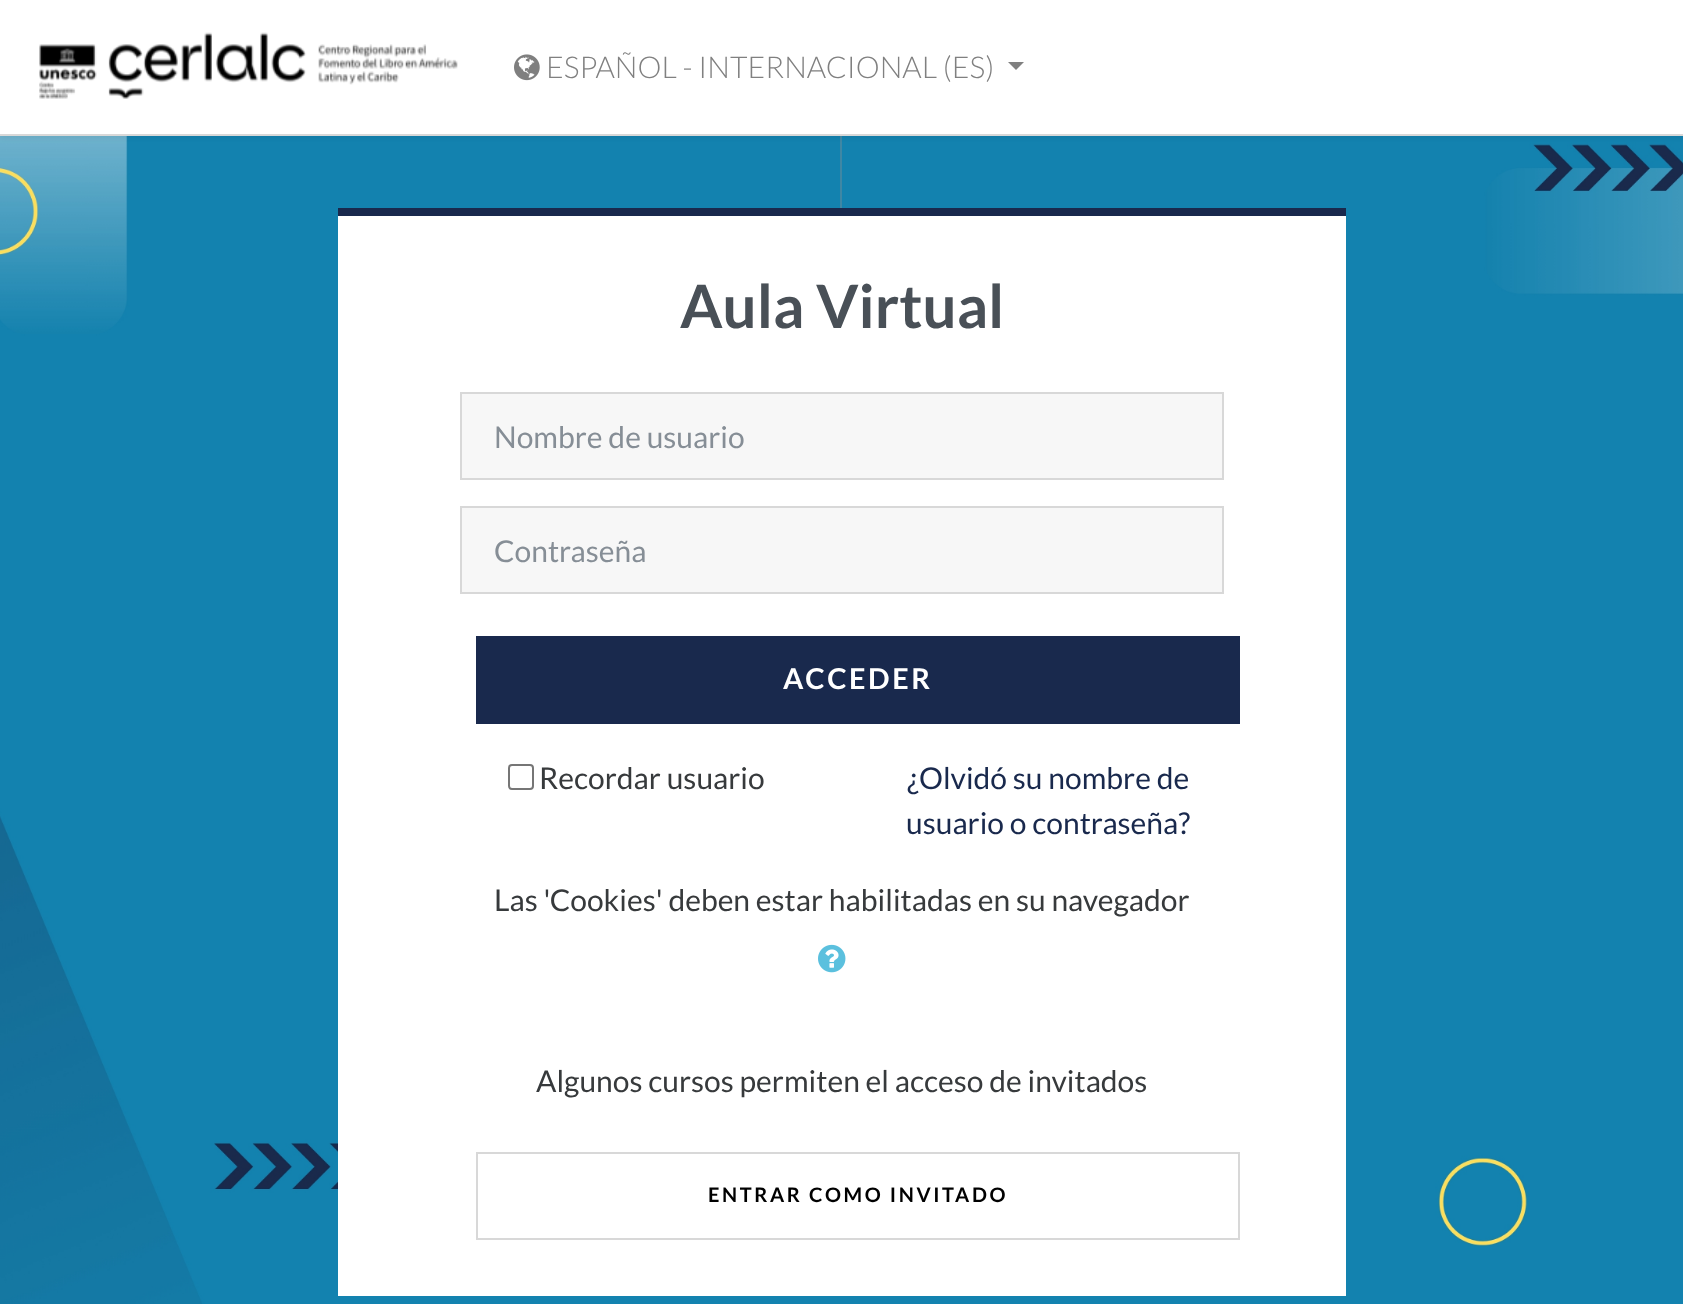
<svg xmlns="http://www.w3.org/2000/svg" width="1683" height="1304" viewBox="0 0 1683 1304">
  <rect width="100%" height="100%" fill="rgb(255,255,255)"/>
  <image x="0" y="136" width="1683" height="1168" href="pic1.png"/>
  <rect x="840" y="136" width="2" height="72" fill="rgb(63,135,164)"/>
  <rect x="0" y="2" width="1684" height="136" fill="rgba(0,0,0,0.05)" filter="blur(2px)"/>
  <rect x="0" y="0" width="1683" height="134" fill="rgb(255,255,255)"/>
  <rect x="0" y="134" width="1683" height="2" fill="rgb(216,216,216)"/>
  <image x="39" y="32" width="419" height="67" href="pic2.png"/>
  <image x="514" y="54" width="26" height="27" href="pic3.png"/>
  <text x="546" y="78" font-family="Lato" font-size="30" font-weight="300" fill="rgb(128,128,128)">ESPAÑOL - INTERNACIONAL (ES)</text>
  <path d="M1008 62H1024L1016 70Z" fill="rgb(128,128,128)"/>
  <rect x="338" y="216" width="1008" height="1080" fill="rgb(255,255,255)"/>
  <rect x="338" y="208" width="1008" height="8" fill="rgb(25,41,77)"/>
  <text x="680" y="328" font-family="Lato" font-size="60" font-weight="bold" fill="rgb(73,80,87)">Aula Virtual</text>
  <rect x="461" y="393" width="762" height="86" fill="rgb(247,247,247)" stroke="rgb(216,216,216)" stroke-width="2"/>
  <text x="494" y="448" font-family="Lato" font-size="30" fill="rgb(134,142,150)">Nombre de usuario</text>
  <rect x="461" y="507" width="762" height="86" fill="rgb(247,247,247)" stroke="rgb(216,216,216)" stroke-width="2"/>
  <text x="494" y="562" font-family="Lato" font-size="30" fill="rgb(134,142,150)">Contraseña</text>
  <rect x="476" y="636" width="764" height="88" fill="rgb(25,41,77)"/>
  <text x="783" y="689" font-family="Lato" font-size="28.75" font-weight="bold" letter-spacing="2.6" fill="rgb(255,255,255)">ACCEDER</text>
  <rect x="509" y="765" width="24" height="24" rx="3" fill="none" stroke="rgb(118,118,118)" stroke-width="2"/>
  <text x="539" y="789" font-family="Lato" font-size="30" fill="rgb(55,58,60)">Recordar usuario</text>
  <g font-family="Lato" font-size="30" fill="rgb(25,41,77)">
    <text x="907" y="789">¿Olvidó su nombre de</text>
    <text x="906" y="834">usuario o contraseña?</text>
  </g>
  <text x="494" y="911" font-family="Lato" font-size="30" fill="rgb(55,58,60)">Las 'Cookies' deben estar habilitadas en su navegador</text>
  <image x="818" y="944" width="28" height="29" href="pic4.png"/>
  <text x="536" y="1092" font-family="Lato" font-size="30" fill="rgb(55,58,60)">Algunos cursos permiten el acceso de invitados</text>
  <rect x="477" y="1153" width="762" height="86" fill="none" stroke="rgb(216,216,216)" stroke-width="2"/>
  <text x="708" y="1202" font-family="Lato" font-size="20" font-weight="bold" letter-spacing="2.6" fill="rgb(0,0,0)">ENTRAR COMO INVITADO</text>
</svg>
